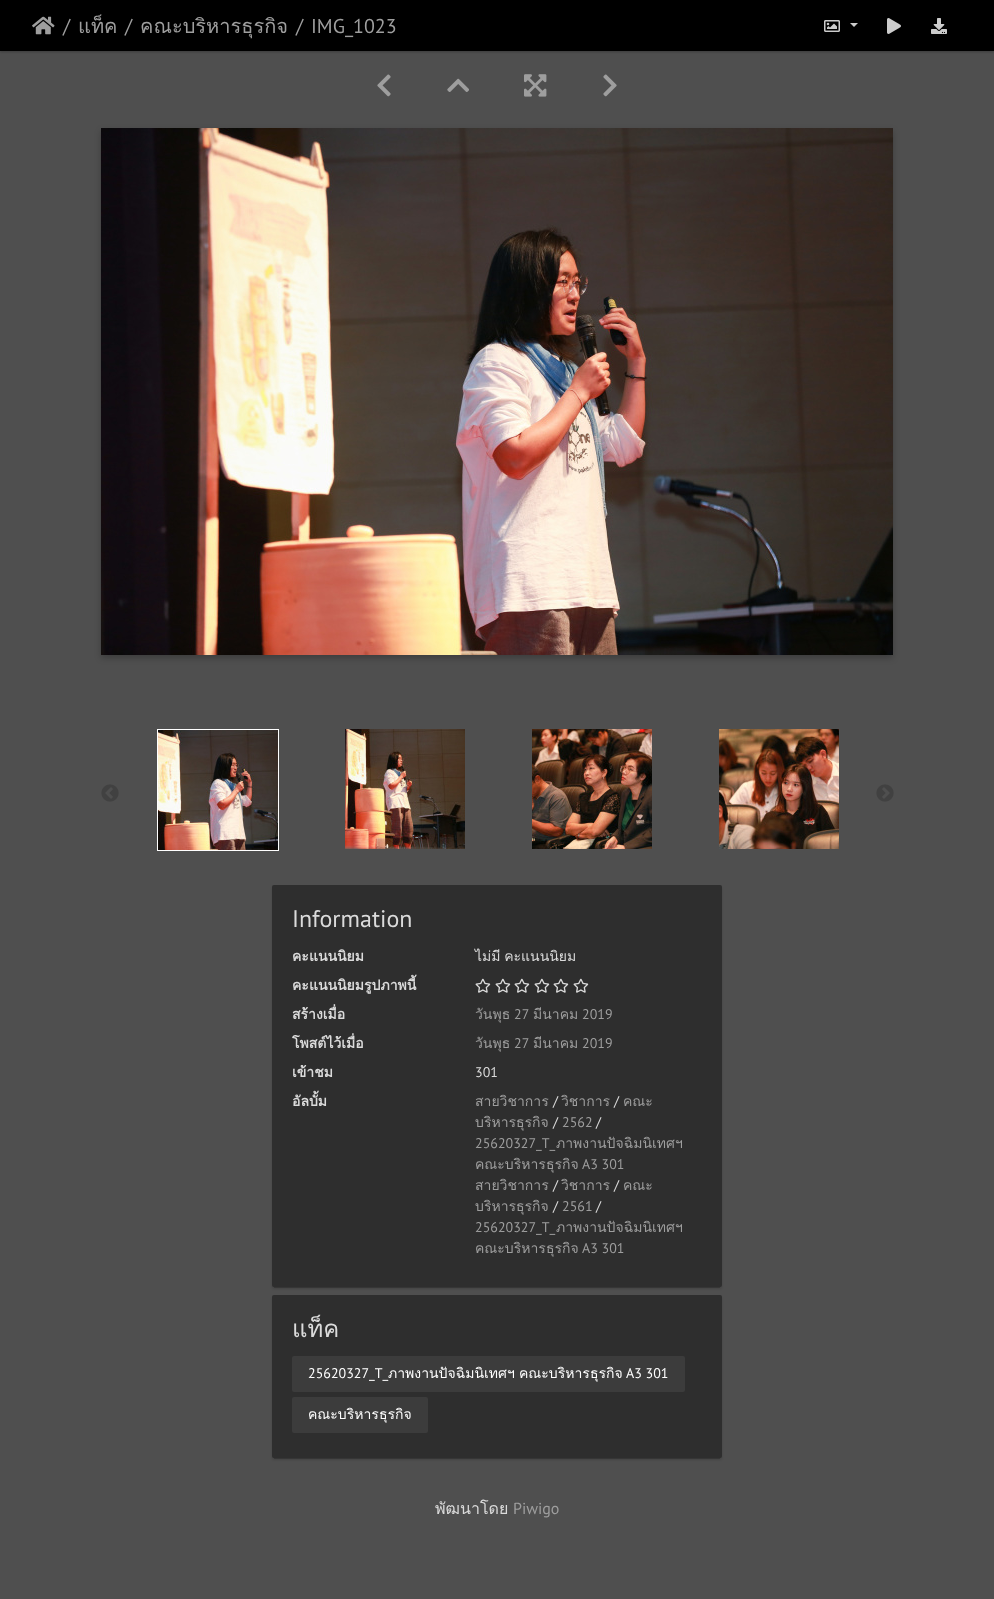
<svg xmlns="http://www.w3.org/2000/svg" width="994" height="1599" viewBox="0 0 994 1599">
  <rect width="100%" height="100%" fill="rgb(79,79,79)"/>
  <rect x="0" y="1" width="994" height="51" fill="rgba(0,0,0,0.24)" filter="blur(1px)"/>
  <rect x="0" y="0" width="994" height="51" fill="rgb(0,0,0)"/>
  <image x="32" y="16" width="23" height="19" href="pic1.png"/>
  <text x="63" y="33" font-family="PT Sans" font-size="20" fill="rgb(158,158,158)">/</text>
  <text x="78" y="33" font-family="Loma" font-size="20" fill="rgb(158,158,158)">แท็ค</text>
  <text x="125" y="33" font-family="PT Sans" font-size="20" fill="rgb(158,158,158)">/</text>
  <text x="140" y="33" font-family="Loma" font-size="20" fill="rgb(158,158,158)">คณะบริหารธุรกิจ</text>
  <g font-family="PT Sans" font-size="20" fill="rgb(158,158,158)">
    <text x="296" y="33">/</text>
    <text x="311" y="33">IMG_1023</text>
  </g>
  <image x="824" y="20" width="16" height="12" href="pic2.png"/>
  <path d="M850 23H858L854 27Z" fill="rgb(204,204,204)"/>
  <image x="887" y="18" width="14" height="16" href="pic3.png"/>
  <image x="931" y="18" width="16" height="16" href="pic4.png"/>
  <image x="377" y="74" width="14" height="23" href="pic5.png"/>
  <image x="447" y="78" width="22" height="14" href="pic6.png"/>
  <image x="524" y="74" width="23" height="23" href="pic7.png"/>
  <image x="603" y="74" width="14" height="23" href="pic8.png"/>
  <rect x="101" y="131" width="792" height="527" fill="rgba(0,0,0,0.23)" filter="blur(3px)"/>
  <image x="101" y="128" width="792" height="527" href="pic9.png"/>
  <image x="101" y="784" width="18" height="18" href="pic10.png"/>
  <rect x="157.5" y="729.5" width="121" height="121" fill="none" stroke="rgb(255,255,255)"/>
  <image x="158" y="730" width="120" height="120" href="pic11.png"/>
  <image x="345" y="729" width="120" height="120" href="pic12.png"/>
  <image x="532" y="729" width="120" height="120" href="pic13.png"/>
  <image x="719" y="729" width="120" height="120" href="pic14.png"/>
  <image x="876" y="784" width="18" height="18" href="pic15.png"/>
  <rect x="274" y="890" width="446" height="398" fill="rgba(0,0,0,0.2)" filter="blur(0.5px)"/>
  <rect x="272" y="887" width="450" height="402" rx="2" fill="rgba(0,0,0,0.14)" filter="blur(1px)"/>
  <rect x="272" y="885" width="450" height="402" rx="2" fill="rgb(46,46,46)"/>
  <text x="292" y="927" font-family="PT Sans" font-size="24" fill="rgb(219,219,219)">Information</text>
  <text x="292" y="961" font-family="Loma" font-size="14" font-weight="bold" fill="rgb(219,219,219)">คะแนนนิยม</text>
  <text x="475" y="961" word-spacing="-1" font-family="Loma" font-size="14" fill="rgb(219,219,219)">ไม่มี คะแนนนิยม</text>
  <text x="292" y="990" font-family="Loma" font-size="14" font-weight="bold" fill="rgb(219,219,219)">คะแนนนิยมรูปภาพนี้</text>
  <image x="475" y="978" width="16" height="15" href="pic16.png"/>
  <image x="495" y="978" width="16" height="15" href="pic16.png"/>
  <image x="514" y="978" width="16" height="15" href="pic16.png"/>
  <image x="534" y="978" width="16" height="15" href="pic16.png"/>
  <image x="553" y="978" width="16" height="15" href="pic16.png"/>
  <image x="573" y="978" width="16" height="15" href="pic16.png"/>
  <text x="292" y="1019" font-family="Loma" font-size="14" font-weight="bold" fill="rgb(219,219,219)">สร้างเมื่อ</text>
  <text x="475" y="1019" font-family="Loma" font-size="14" fill="rgb(158,158,158)">วันพุธ</text>
  <text x="514" y="1019" font-family="PT Sans" font-size="14" fill="rgb(158,158,158)">27</text>
  <text x="533" y="1019" font-family="Loma" font-size="14" fill="rgb(158,158,158)">มีนาคม</text>
  <text x="582" y="1019" font-family="PT Sans" font-size="14" fill="rgb(158,158,158)">2019</text>
  <text x="292" y="1048" font-family="Loma" font-size="14" font-weight="bold" fill="rgb(219,219,219)">โพสต์ไว้เมื่อ</text>
  <text x="475" y="1048" font-family="Loma" font-size="14" fill="rgb(158,158,158)">วันพุธ</text>
  <text x="514" y="1048" font-family="PT Sans" font-size="14" fill="rgb(158,158,158)">27</text>
  <text x="533" y="1048" font-family="Loma" font-size="14" fill="rgb(158,158,158)">มีนาคม</text>
  <text x="582" y="1048" font-family="PT Sans" font-size="14" fill="rgb(158,158,158)">2019</text>
  <text x="292" y="1077" font-family="Loma" font-size="14" font-weight="bold" fill="rgb(219,219,219)">เข้าชม</text>
  <text x="475" y="1077" font-family="PT Sans" font-size="14" fill="rgb(219,219,219)">301</text>
  <text x="292" y="1106" font-family="Loma" font-size="14" font-weight="bold" fill="rgb(219,219,219)">อัลบั้ม</text>
  <text x="475" y="1106" font-family="Loma" font-size="14" fill="rgb(158,158,158)">สายวิชาการ</text>
  <text x="553" y="1106" font-family="PT Sans" font-size="14" fill="rgb(219,219,219)">/</text>
  <text x="561" y="1106" font-family="Loma" font-size="14" fill="rgb(158,158,158)">วิชาการ</text>
  <text x="614" y="1106" font-family="PT Sans" font-size="14" fill="rgb(219,219,219)">/</text>
  <g font-family="Loma" font-size="14" fill="rgb(158,158,158)">
    <text x="623" y="1106">คณะ</text>
    <text x="475" y="1127">บริหารธุรกิจ</text>
  </g>
  <text x="553" y="1127" font-family="PT Sans" font-size="14" fill="rgb(219,219,219)">/</text>
  <text x="562" y="1127" font-family="PT Sans" font-size="14" fill="rgb(158,158,158)">2562</text>
  <text x="596" y="1127" font-family="PT Sans" font-size="14" fill="rgb(219,219,219)">/</text>
  <text x="475" y="1148" font-family="PT Sans" font-size="14" fill="rgb(158,158,158)">25620327_T_</text>
  <g font-family="Loma" font-size="14" fill="rgb(158,158,158)">
    <text x="556" y="1148">ภาพงานปัจฉิมนิเทศฯ</text>
    <text x="475" y="1169">คณะบริหารธุรกิจ</text>
  </g>
  <text x="582" y="1169" font-family="PT Sans" font-size="14" fill="rgb(158,158,158)">A3 301</text>
  <text x="475" y="1190" font-family="Loma" font-size="14" fill="rgb(158,158,158)">สายวิชาการ</text>
  <text x="553" y="1190" font-family="PT Sans" font-size="14" fill="rgb(219,219,219)">/</text>
  <text x="561" y="1190" font-family="Loma" font-size="14" fill="rgb(158,158,158)">วิชาการ</text>
  <text x="614" y="1190" font-family="PT Sans" font-size="14" fill="rgb(219,219,219)">/</text>
  <g font-family="Loma" font-size="14" fill="rgb(158,158,158)">
    <text x="623" y="1190">คณะ</text>
    <text x="475" y="1211">บริหารธุรกิจ</text>
  </g>
  <text x="553" y="1211" font-family="PT Sans" font-size="14" fill="rgb(219,219,219)">/</text>
  <text x="562" y="1211" font-family="PT Sans" font-size="14" fill="rgb(158,158,158)">2561</text>
  <text x="596" y="1211" font-family="PT Sans" font-size="14" fill="rgb(219,219,219)">/</text>
  <text x="475" y="1232" font-family="PT Sans" font-size="14" fill="rgb(158,158,158)">25620327_T_</text>
  <g font-family="Loma" font-size="14" fill="rgb(158,158,158)">
    <text x="556" y="1232">ภาพงานปัจฉิมนิเทศฯ</text>
    <text x="475" y="1253">คณะบริหารธุรกิจ</text>
  </g>
  <text x="582" y="1253" font-family="PT Sans" font-size="14" fill="rgb(158,158,158)">A3 301</text>
  <rect x="274" y="1300" width="446" height="159" fill="rgba(0,0,0,0.2)" filter="blur(0.5px)"/>
  <rect x="272" y="1297" width="450" height="163" rx="2" fill="rgba(0,0,0,0.14)" filter="blur(1px)"/>
  <rect x="272" y="1295" width="450" height="163" rx="2" fill="rgb(46,46,46)"/>
  <text x="292" y="1337" font-family="Loma" font-size="24" fill="rgb(219,219,219)">แท็ค</text>
  <rect x="292" y="1356" width="393" height="36" rx="2" fill="rgb(60,60,60)"/>
  <text x="308" y="1378" font-family="PT Sans" font-size="14" fill="rgb(255,255,255)">25620327_T_</text>
  <g font-family="Loma" font-size="14" fill="rgb(255,255,255)">
    <text x="388" y="1378">ภาพงานปัจฉิมนิเทศฯ</text>
    <text x="519" y="1378">คณะบริหารธุรกิจ</text>
  </g>
  <text x="626" y="1378" font-family="PT Sans" font-size="14" fill="rgb(255,255,255)">A3 301</text>
  <rect x="292" y="1397" width="136" height="36" rx="2" fill="rgb(60,60,60)"/>
  <text x="308" y="1419" font-family="Loma" font-size="14" fill="rgb(255,255,255)">คณะบริหารธุรกิจ</text>
  <text x="435" y="1514" font-family="Loma" font-size="16" fill="rgb(219,219,219)">พัฒนาโดย</text>
  <text x="513" y="1514" font-family="PT Sans" font-size="16" fill="rgb(158,158,158)">Piwigo</text>
</svg>
